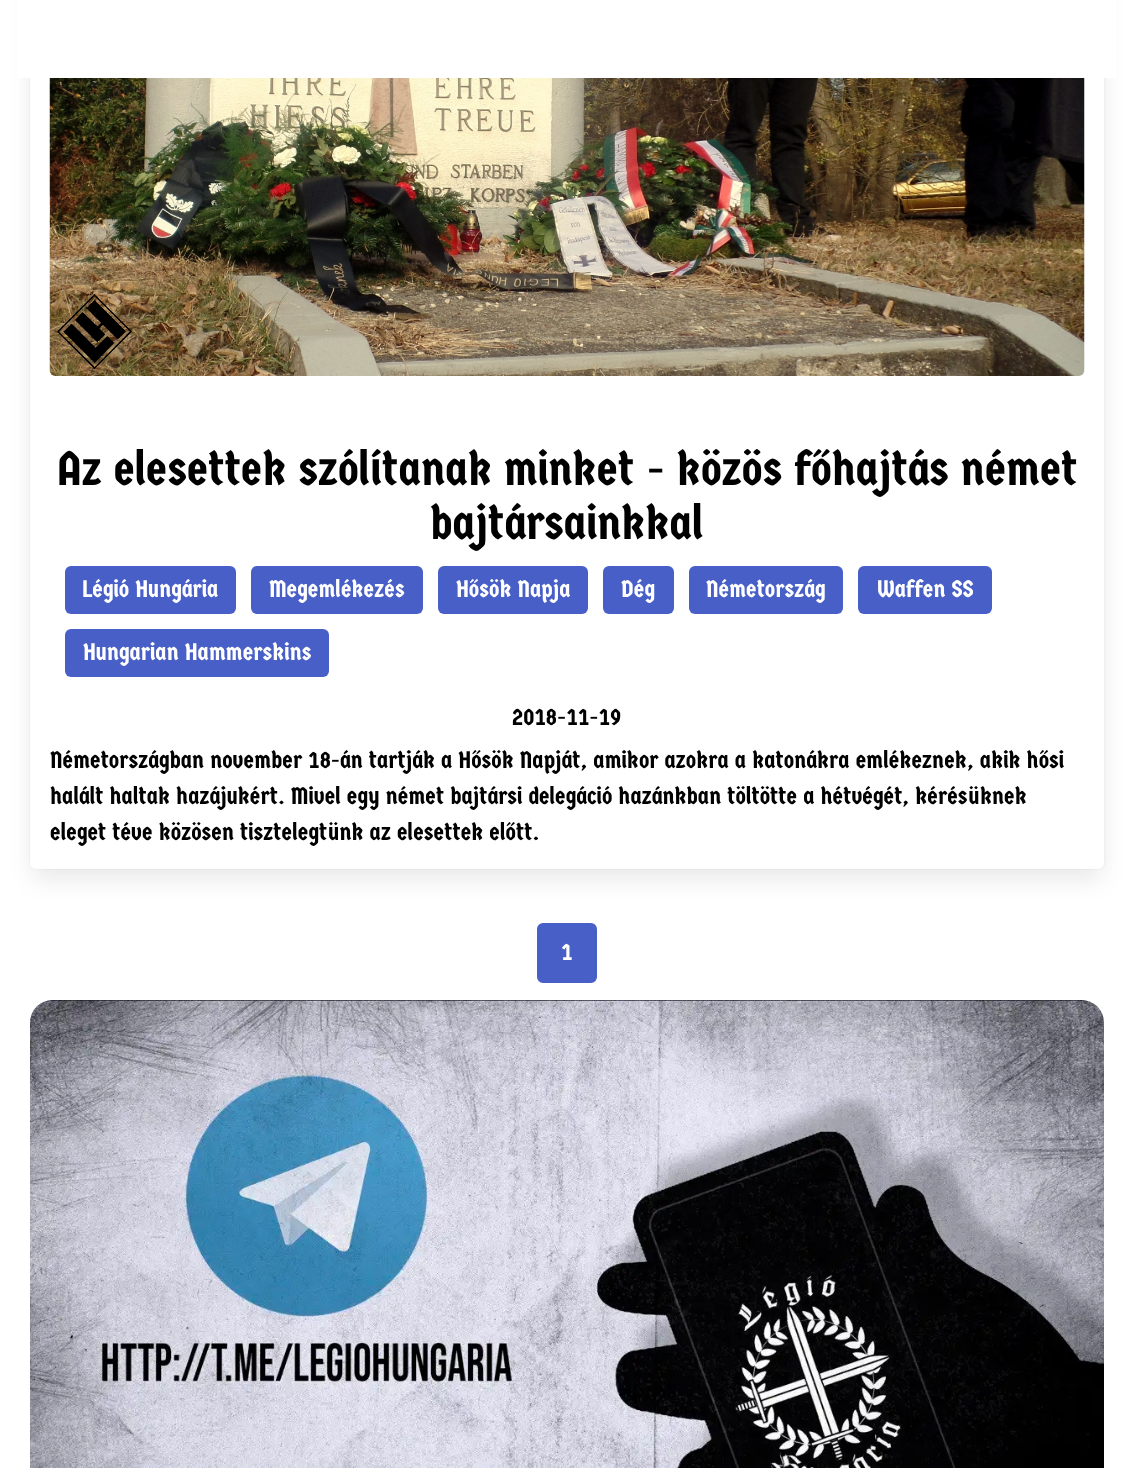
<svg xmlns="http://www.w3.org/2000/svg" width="1133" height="1468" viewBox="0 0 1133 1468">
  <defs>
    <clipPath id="clip1"><path d="M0 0H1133V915H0ZM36-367H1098C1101.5-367 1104-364.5 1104-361V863C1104 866.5 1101.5 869 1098 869H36C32.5 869 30 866.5 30 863V-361C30-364.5 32.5-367 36-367Z" clip-rule="evenodd"/></clipPath>
  </defs>
  <rect width="100%" height="100%" fill="rgb(255,255,255)"/>
  <rect x="30" y="-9" width="1075" height="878" rx="7" fill="none" stroke="rgb(250,250,250)" stroke-width="2"/>
  <g clip-path="url(#clip1)">
    <rect x="33" y="-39" width="1068" height="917" rx="3" fill="rgba(10,10,10,0.1)" filter="blur(12px)"/>
  </g>
  <rect x="30" y="-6" width="1074" height="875" rx="6" fill="rgba(255,255,255,0.64)"/>
  <rect x="18" y="0" width="1098" height="78" fill="rgb(255,255,255)"/>
  <image x="49" y="78" width="1036" height="298" href="pic1.png"/>
  <g font-family="Germania One" font-size="48" fill="rgb(0,0,0)">
    <text x="57" y="485">Az elesettek szólítanak minket - közös főhajtás német</text>
    <text x="430" y="539">bajtársainkkal</text>
  </g>
  <rect x="65" y="566" width="171" height="48" rx="6" fill="rgb(72,95,199)"/>
  <text x="83" y="597" font-family="Germania One" font-size="24" fill="rgb(255,255,255)">Légió Hungária</text>
  <rect x="251" y="566" width="172" height="48" rx="6" fill="rgb(72,95,199)"/>
  <text x="269" y="597" font-family="Germania One" font-size="24" fill="rgb(255,255,255)">Megemlékezés</text>
  <rect x="438" y="566" width="150" height="48" rx="6" fill="rgb(72,95,199)"/>
  <text x="456" y="597" font-family="Germania One" font-size="24" fill="rgb(255,255,255)">Hősök Napja</text>
  <rect x="603" y="566" width="71" height="48" rx="6" fill="rgb(72,95,199)"/>
  <text x="621" y="597" font-family="Germania One" font-size="24" fill="rgb(255,255,255)">Dég</text>
  <rect x="689" y="566" width="154" height="48" rx="6" fill="rgb(72,95,199)"/>
  <text x="706" y="597" font-family="Germania One" font-size="24" fill="rgb(255,255,255)">Németország</text>
  <rect x="858" y="566" width="134" height="48" rx="6" fill="rgb(72,95,199)"/>
  <text x="877" y="597" font-family="Germania One" font-size="24" fill="rgb(255,255,255)">Waffen SS</text>
  <rect x="65" y="629" width="264" height="48" rx="6" fill="rgb(72,95,199)"/>
  <text x="83" y="660" font-family="Germania One" font-size="24" fill="rgb(255,255,255)">Hungarian Hammerskins</text>
  <g font-family="Germania One" font-size="24" fill="rgb(0,0,0)">
    <text x="512" y="725">2018-11-19</text>
    <text>
      <tspan x="50" y="768">Németországban november 18-án tartják a Hősök Napját, amikor azokra a katonákra emlékeznek, akik hősi</tspan>
      <tspan x="50" y="804">halált haltak hazájukért. Mivel egy német bajtársi delegáció hazánkban töltötte a hétvégét, kérésüknek</tspan>
      <tspan x="50" y="840">eleget téve közösen tisztelegtünk az elesettek előtt.</tspan>
    </text>
  </g>
  <rect x="538" y="924" width="58" height="58" rx="5" fill="rgb(72,95,199)" stroke="rgb(72,95,199)" stroke-width="2"/>
  <text x="561" y="960" font-family="Germania One" font-size="24" fill="rgb(255,255,255)">1</text>
  <image x="30" y="1000" width="1074" height="468" href="pic2.png"/>
</svg>
